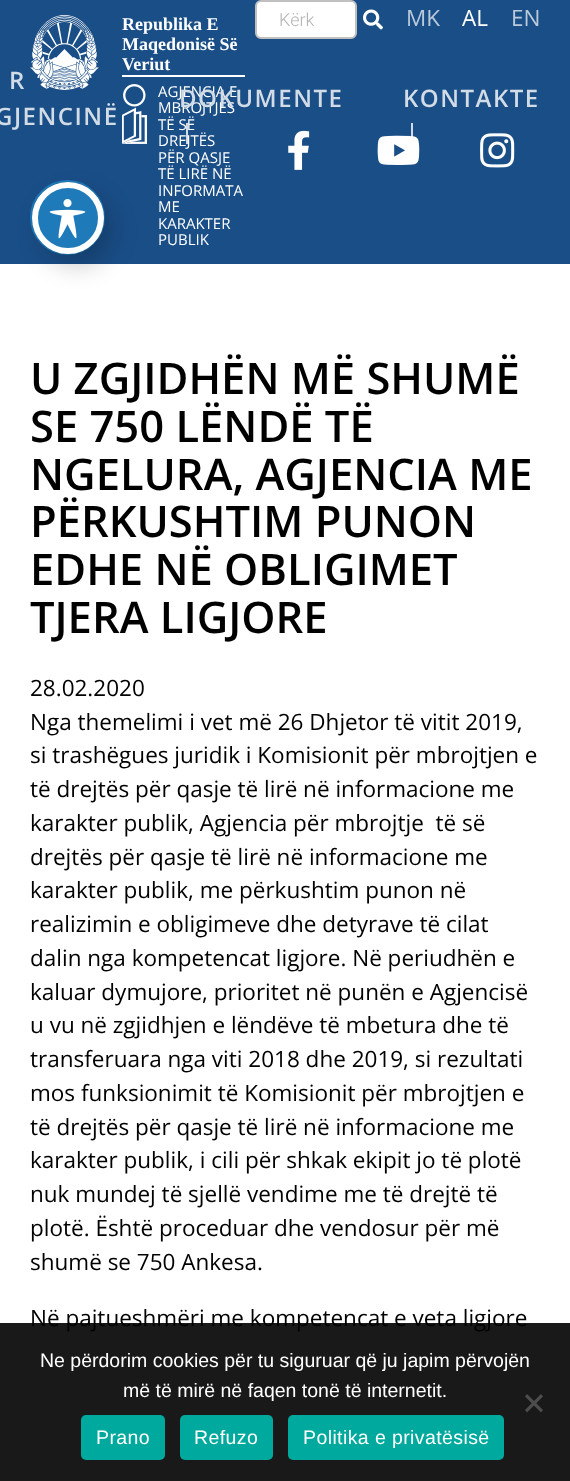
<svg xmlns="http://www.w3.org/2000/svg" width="570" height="1481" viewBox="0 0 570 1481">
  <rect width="100%" height="100%" fill="rgb(255,255,255)"/>
  <rect x="0" y="0" width="570" height="264" fill="rgb(26,78,135)"/>
  <rect x="256" y="1" width="100" height="37" rx="5" fill="rgb(255,255,255)" stroke="rgb(192,192,192)" stroke-width="2"/>
  <text x="279" y="26" font-family="Roboto" font-size="18" font-weight="300" fill="rgb(179,179,179)">Kërk</text>
  <image x="363" y="9" width="20" height="21" href="pic1.png"/>
  <text x="406" y="26" font-family="Open Sans" font-size="22.5" fill="rgb(186,202,219)">MK</text>
  <text x="462" y="26" font-family="Open Sans" font-size="22.5" fill="rgb(255,255,255)">AL</text>
  <text x="511" y="26" font-family="Open Sans" font-size="22.5" fill="rgb(186,202,219)">EN</text>
  <g font-family="Open Sans" font-size="24" font-weight="600" letter-spacing="1.5" fill="rgb(209,220,231)">
    <text x="9" y="89">R</text>
    <text x="-5" y="125">GJENCINË</text>
  </g>
  <g font-family="Open Sans" font-size="15" fill="rgb(255,255,255)">
    <text>
      <tspan x="158" y="97">AGJENCIA E</tspan>
      <tspan x="158" y="113">MBROJTJES</tspan>
    </text>
  </g>
  <text x="179" y="107" font-family="Open Sans" font-size="24" font-weight="600" letter-spacing="1.5" fill="rgb(209,220,231)">DOKUMENTE</text>
  <g font-family="Open Sans" font-size="15" fill="rgb(255,255,255)">
    <text>
      <tspan x="158" y="130">TË SË</tspan>
      <tspan x="158" y="146">DREJTËS</tspan>
    </text>
  </g>
  <rect x="186" y="123" width="2" height="21" fill="rgba(255,255,255,0.8)"/>
  <text x="403" y="107" font-family="Open Sans" font-size="24" font-weight="600" letter-spacing="1.5" fill="rgb(209,220,231)">KONTAKTE</text>
  <image x="377" y="135" width="43" height="30" href="pic5.png"/>
  <rect x="411" y="123" width="2" height="21" fill="rgba(255,255,255,0.8)"/>
  <image x="30" y="15" width="69" height="75" href="pic2.png"/>
  <rect x="122" y="75" width="123" height="2" fill="rgb(255,255,255)"/>
  <g font-family="Liberation Serif" font-size="18" font-weight="bold" fill="rgb(255,255,255)">
    <text>
      <tspan x="122" y="30">Republika E</tspan>
      <tspan x="122" y="50">Maqedonisë Së</tspan>
      <tspan x="122" y="70">Veriut</tspan>
    </text>
  </g>
  <image x="122" y="84" width="25" height="60" href="pic3.png"/>
  <g font-family="Open Sans" font-size="15" fill="rgb(255,255,255)">
    <text>
      <tspan x="158" y="163">PËR QASJE</tspan>
      <tspan x="158" y="179">TË LIRË NË</tspan>
      <tspan x="158" y="196">INFORMATA</tspan>
      <tspan x="158" y="212">ME</tspan>
      <tspan x="158" y="229">KARAKTER</tspan>
      <tspan x="158" y="245">PUBLIK</tspan>
    </text>
  </g>
  <image x="288" y="130" width="22" height="40" href="pic4.png"/>
  <image x="480" y="133" width="35" height="35" href="pic6.png"/>
  <g font-family="Open Sans" font-size="43.5" font-weight="600" fill="rgb(0,0,0)">
    <text>
      <tspan x="30" y="394">U ZGJIDHËN MË SHUMË</tspan>
      <tspan x="30" y="442">SE 750 LËNDË TË</tspan>
      <tspan x="30" y="490">NGELURA, AGJENCIA ME</tspan>
      <tspan x="30" y="537">PËRKUSHTIM PUNON</tspan>
      <tspan x="30" y="585">EDHE NË OBLIGIMET</tspan>
      <tspan x="30" y="633">TJERA LIGJORE</tspan>
    </text>
  </g>
  <g font-family="Open Sans" font-size="22.5" fill="rgb(0,0,0)">
    <text xml:space="preserve"><tspan x="30" y="696">28.02.2020</tspan><tspan x="30" y="730">Nga themelimi i vet më 26 Dhjetor të vitit 2019,</tspan><tspan x="30" y="763">si trashëgues juridik i Komisionit për mbrojtjen e</tspan><tspan x="30" y="797">të drejtës për qasje të lirë në informacione me</tspan><tspan x="30" y="831">karakter publik, Agjencia për mbrojtje  të së</tspan><tspan x="30" y="865">drejtës për qasje të lirë në informacione me</tspan><tspan x="30" y="898">karakter publik, me përkushtim punon në</tspan><tspan x="30" y="932">realizimin e obligimeve dhe detyrave të cilat</tspan><tspan x="30" y="966">dalin nga kompetencat ligjore. Në periudhën e</tspan><tspan x="30" y="1000">kaluar dymujore, prioritet në punën e Agjencisë</tspan><tspan x="30" y="1033">u vu në zgjidhjen e lëndëve të mbetura dhe të</tspan><tspan x="30" y="1067">transferuara nga viti 2018 dhe 2019, si rezultati</tspan><tspan x="30" y="1101">mos funksionimit të Komisionit për mbrojtjen e</tspan><tspan x="30" y="1135">të drejtës për qasje të lirë në informacione me</tspan><tspan x="30" y="1168">karakter publik, i cili për shkak ekipit jo të plotë</tspan><tspan x="30" y="1202">nuk mundej të sjellë vendime me të drejtë të</tspan><tspan x="30" y="1236">plotë. Është proceduar dhe vendosur për më</tspan><tspan x="30" y="1270">shumë se 750 Ankesa.</tspan></text>
    <text x="30" y="1326">Në pajtueshmëri me kompetencat e veta ligjore</text>
  </g>
  <circle cx="67.5" cy="217.5" r="36.5" fill="none" stroke="rgb(30,122,185)" stroke-width="2"/>
  <rect x="41" y="194" width="72" height="72" rx="36" fill="rgba(0,0,0,0.2)" filter="blur(12px)"/>
  <circle cx="68" cy="218" r="33" fill="rgb(30,122,185)" stroke="rgb(255,255,255)" stroke-width="6"/>
  <image x="49" y="199" width="37" height="40" href="pic7.png"/>
  <rect x="0" y="1323" width="570" height="158" fill="rgba(0,0,0,0.9)"/>
  <g font-family="Liberation Sans" font-size="19.5" fill="rgb(255,255,255)">
    <text x="40" y="1367">Ne përdorim cookies për tu siguruar që ju japim përvojën</text>
    <text x="123" y="1397">më të mirë në faqen tonë të internetit.</text>
  </g>
  <path d="M541 1394L543 1396.5L527 1412.5L525 1410Z" fill="rgb(77,77,77)"/>
  <path d="M525 1396.5L527 1394L543 1410L541 1412.5Z" fill="rgb(77,77,77)"/>
  <rect x="81" y="1415" width="84" height="45" rx="5" fill="rgb(0,169,157)"/>
  <text x="96" y="1444" font-family="Liberation Sans" font-size="19.5" letter-spacing="0.4" fill="rgb(255,255,255)">Prano</text>
  <rect x="180" y="1415" width="93" height="45" rx="5" fill="rgb(0,169,157)"/>
  <text x="194" y="1444" font-family="Liberation Sans" font-size="19.5" letter-spacing="0.4" fill="rgb(255,255,255)">Refuzo</text>
  <rect x="288" y="1415" width="216" height="45" rx="5" fill="rgb(0,169,157)"/>
  <text x="303" y="1444" font-family="Liberation Sans" font-size="19.5" letter-spacing="0.4" fill="rgb(255,255,255)">Politika e privatësisë</text>
</svg>
